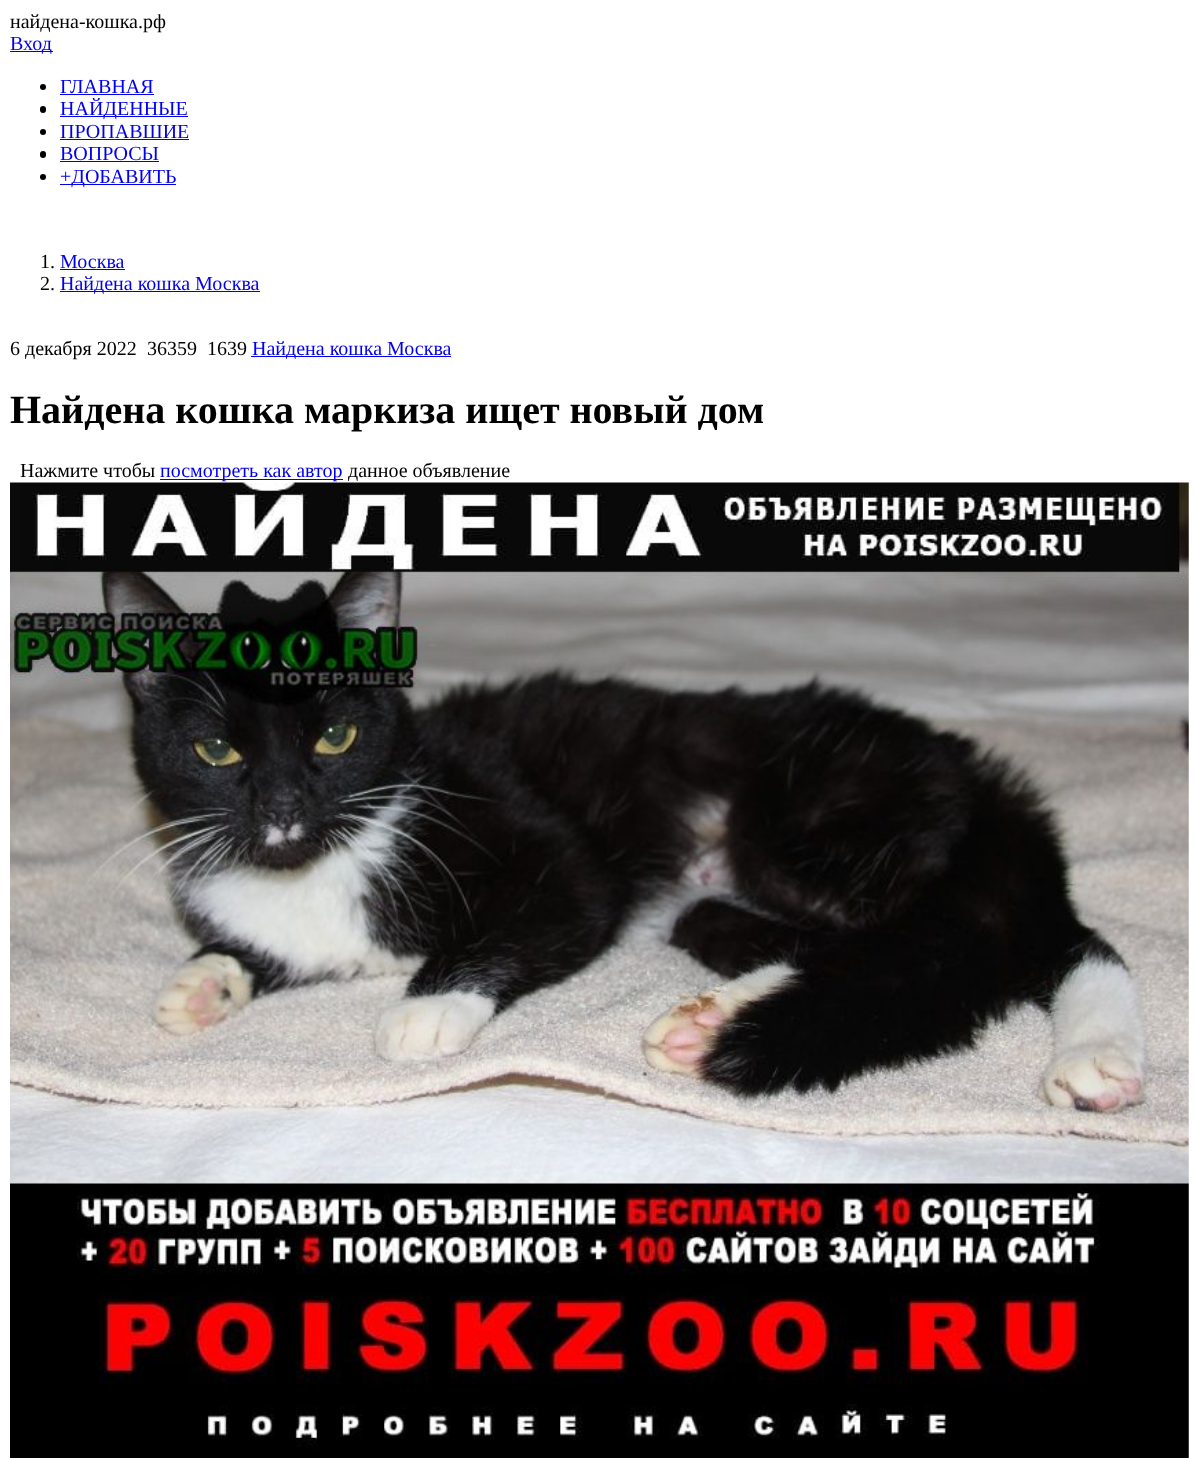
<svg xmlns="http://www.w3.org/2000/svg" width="1198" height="1458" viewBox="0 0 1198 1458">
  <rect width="100%" height="100%" fill="rgb(255,255,255)"/>
  <text x="10" y="28" font-family="Liberation Serif" font-size="20" fill="rgb(0,0,0)">найдена-кошка.рф</text>
  <rect x="10" y="51" width="43" height="1" fill="rgb(0,0,238)"/>
  <text x="10" y="50" font-family="Liberation Serif" font-size="20" fill="rgb(0,0,238)">Вход</text>
  <circle cx="43" cy="87" r="3" fill="rgb(0,0,0)"/>
  <text x="60" y="93" font-family="Liberation Serif" font-size="20" fill="rgb(0,0,238)">ГЛАВНАЯ</text>
  <rect x="60" y="94" width="94" height="1" fill="rgb(0,0,238)"/>
  <rect x="40" y="106" width="6" height="7" rx="3" fill="rgb(0,0,0)"/>
  <rect x="60" y="116" width="128" height="1" fill="rgb(0,0,238)"/>
  <text x="60" y="115" font-family="Liberation Serif" font-size="20" fill="rgb(0,0,238)">НАЙДЕННЫЕ</text>
  <circle cx="43" cy="132" r="3" fill="rgb(0,0,0)"/>
  <text x="60" y="138" font-family="Liberation Serif" font-size="20" fill="rgb(0,0,238)">ПРОПАВШИЕ</text>
  <rect x="60" y="139" width="129" height="1" fill="rgb(0,0,238)"/>
  <rect x="40" y="151" width="6" height="7" rx="3" fill="rgb(0,0,0)"/>
  <text x="60" y="160" font-family="Liberation Serif" font-size="20" fill="rgb(0,0,238)">ВОПРОСЫ</text>
  <rect x="60" y="161" width="99" height="1" fill="rgb(0,0,238)"/>
  <circle cx="43" cy="177" r="3" fill="rgb(0,0,0)"/>
  <rect x="60" y="184" width="116" height="1" fill="rgb(0,0,238)"/>
  <text x="60" y="183" font-family="Liberation Serif" font-size="20" fill="rgb(0,0,238)">+ДОБАВИТЬ</text>
  <text x="40" y="268" font-family="Liberation Serif" font-size="20" fill="rgb(0,0,0)">1.</text>
  <text x="60" y="268" font-family="Liberation Serif" font-size="20" fill="rgb(0,0,238)">Москва</text>
  <rect x="60" y="269" width="65" height="1" fill="rgb(0,0,238)"/>
  <text x="40" y="290" font-family="Liberation Serif" font-size="20" fill="rgb(0,0,0)">2.</text>
  <rect x="60" y="291" width="200" height="1" fill="rgb(0,0,238)"/>
  <text x="60" y="290" font-family="Liberation Serif" font-size="20" fill="rgb(0,0,238)">Найдена кошка Москва</text>
  <g font-family="Liberation Serif" font-size="20" fill="rgb(0,0,0)">
    <text x="10" y="355">6 декабря 2022</text>
    <text x="147" y="355">36359</text>
    <text x="207" y="355">1639</text>
  </g>
  <rect x="251" y="356" width="200" height="1" fill="rgb(0,0,238)"/>
  <text x="252" y="355" font-family="Liberation Serif" font-size="20" fill="rgb(0,0,238)">Найдена кошка Москва</text>
  <text x="10" y="423" font-family="Liberation Serif" font-size="40" font-weight="bold" fill="rgb(0,0,0)">Найдена кошка маркиза ищет новый дом</text>
  <text x="20" y="477" font-family="Liberation Serif" font-size="20" fill="rgb(0,0,0)">Нажмите чтобы</text>
  <rect x="160" y="479" width="183" height="1" fill="rgb(0,0,238)"/>
  <text x="160" y="477" font-family="Liberation Serif" font-size="20" fill="rgb(0,0,238)">посмотреть как автор</text>
  <text x="348" y="477" font-family="Liberation Serif" font-size="20" fill="rgb(0,0,0)">данное объявление</text>
  <image x="10" y="482" width="1179" height="976" href="pic1.png"/>
</svg>
